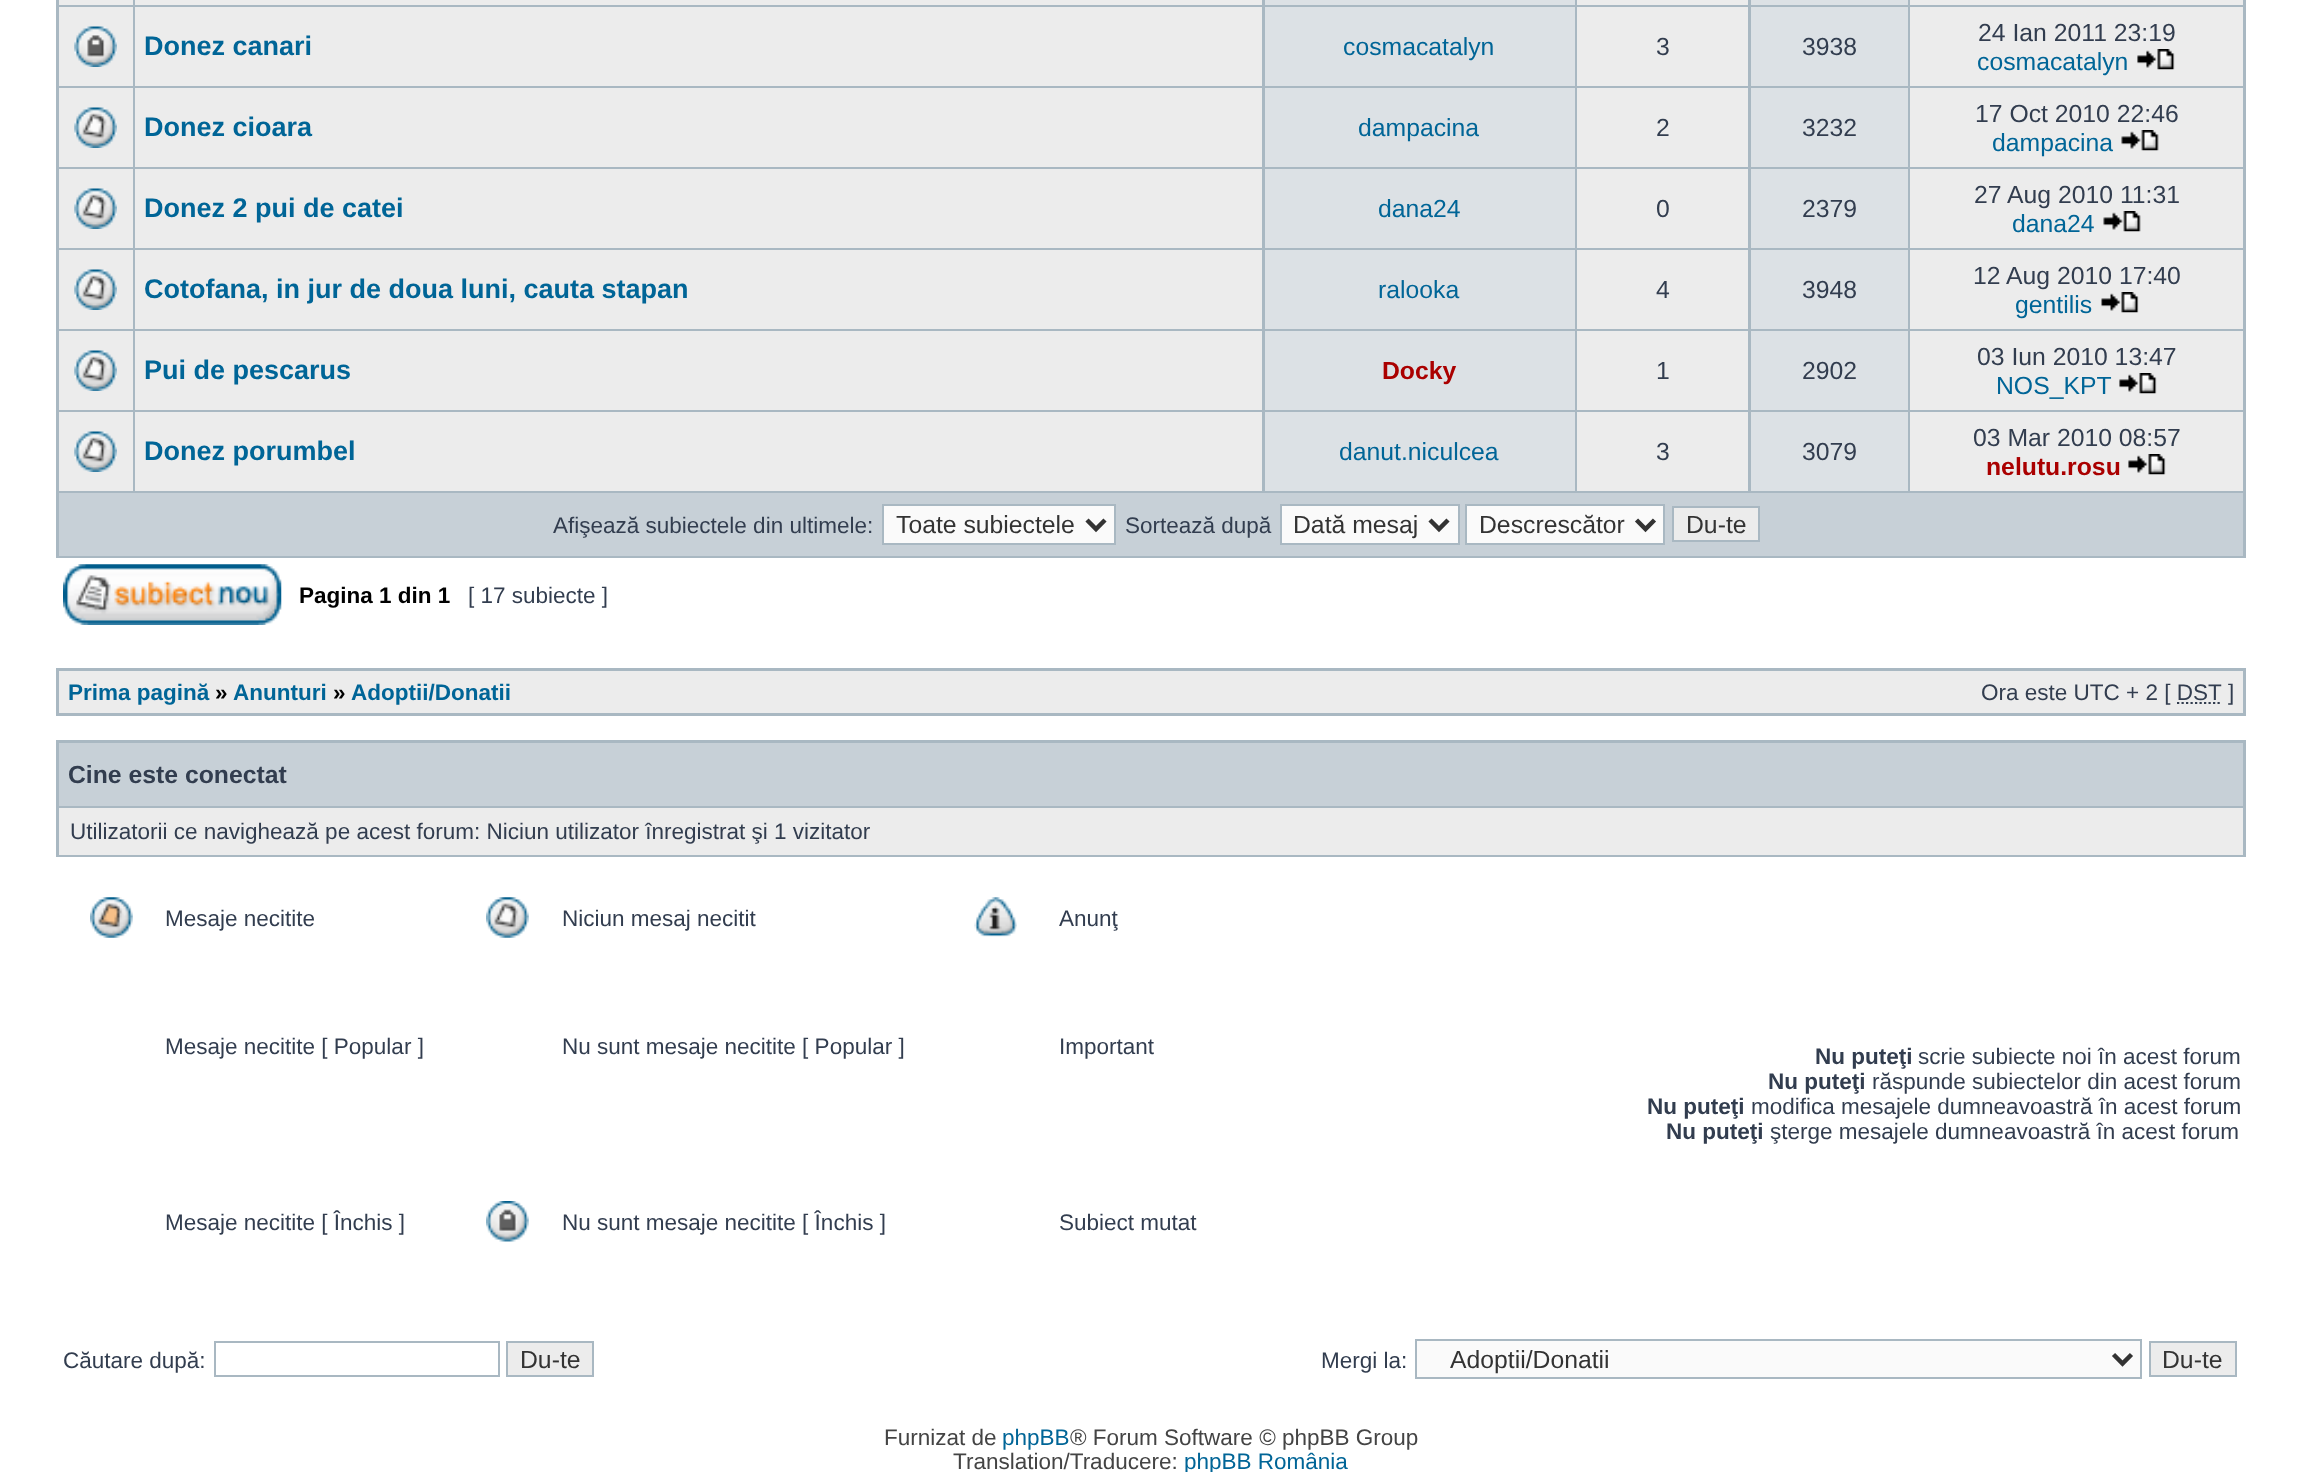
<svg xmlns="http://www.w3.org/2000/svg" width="2300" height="1472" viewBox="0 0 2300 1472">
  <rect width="100%" height="100%" fill="rgb(255,255,255)"/>
  <rect x="56" y="0" width="2190" height="558" fill="rgb(169,184,194)"/>
  <rect x="59" y="0" width="74" height="5" fill="rgb(236,236,236)"/>
  <rect x="135" y="0" width="1127" height="5" fill="rgb(236,236,236)"/>
  <rect x="1265" y="0" width="310" height="5" fill="rgb(220,225,229)"/>
  <rect x="1577" y="0" width="171" height="5" fill="rgb(236,236,236)"/>
  <rect x="1751" y="0" width="157" height="5" fill="rgb(220,225,229)"/>
  <rect x="1910" y="0" width="333" height="5" fill="rgb(236,236,236)"/>
  <rect x="59" y="7" width="74" height="79" fill="rgb(236,236,236)"/>
  <image x="74" y="26" width="43" height="41" href="pic1.png"/>
  <rect x="135" y="7" width="1127" height="79" fill="rgb(236,236,236)"/>
  <text x="144" y="55" font-family="Liberation Sans" font-size="27" font-weight="bold" fill="rgb(0,101,151)">Donez canari</text>
  <rect x="1265" y="7" width="310" height="79" fill="rgb(220,225,229)"/>
  <text x="1343" y="55" font-family="Liberation Sans" font-size="24.75" fill="rgb(0,101,151)">cosmacatalyn</text>
  <rect x="1577" y="7" width="171" height="79" fill="rgb(236,236,236)"/>
  <text x="1656" y="55" font-family="Liberation Sans" font-size="24.75" fill="rgb(50,61,79)">3</text>
  <rect x="1751" y="7" width="157" height="79" fill="rgb(220,225,229)"/>
  <text x="1802" y="55" font-family="Liberation Sans" font-size="24.75" fill="rgb(50,61,79)">3938</text>
  <rect x="1910" y="7" width="333" height="79" fill="rgb(236,236,236)"/>
  <text x="1978" y="41" font-family="Liberation Sans" font-size="24.75" fill="rgb(50,61,79)">24 Ian 2011 23:19</text>
  <text x="1977" y="70" font-family="Liberation Sans" font-size="24.75" fill="rgb(0,101,151)">cosmacatalyn</text>
  <image x="2137" y="49" width="38" height="21" href="pic2.png"/>
  <rect x="59" y="88" width="74" height="79" fill="rgb(236,236,236)"/>
  <image x="74" y="107" width="43" height="41" href="pic3.png"/>
  <rect x="135" y="88" width="1127" height="79" fill="rgb(236,236,236)"/>
  <text x="144" y="136" font-family="Liberation Sans" font-size="27" font-weight="bold" fill="rgb(0,101,151)">Donez cioara</text>
  <rect x="1265" y="88" width="310" height="79" fill="rgb(220,225,229)"/>
  <text x="1358" y="136" font-family="Liberation Sans" font-size="24.75" fill="rgb(0,101,151)">dampacina</text>
  <rect x="1577" y="88" width="171" height="79" fill="rgb(236,236,236)"/>
  <text x="1656" y="136" font-family="Liberation Sans" font-size="24.75" fill="rgb(50,61,79)">2</text>
  <rect x="1751" y="88" width="157" height="79" fill="rgb(220,225,229)"/>
  <text x="1802" y="136" font-family="Liberation Sans" font-size="24.75" fill="rgb(50,61,79)">3232</text>
  <rect x="1910" y="88" width="333" height="79" fill="rgb(236,236,236)"/>
  <text x="1975" y="122" font-family="Liberation Sans" font-size="24.75" fill="rgb(50,61,79)">17 Oct 2010 22:46</text>
  <text x="1992" y="151" font-family="Liberation Sans" font-size="24.75" fill="rgb(0,101,151)">dampacina</text>
  <image x="2121" y="130" width="38" height="21" href="pic4.png"/>
  <rect x="59" y="169" width="74" height="79" fill="rgb(236,236,236)"/>
  <image x="74" y="188" width="43" height="41" href="pic3.png"/>
  <rect x="135" y="169" width="1127" height="79" fill="rgb(236,236,236)"/>
  <text x="144" y="217" font-family="Liberation Sans" font-size="27" font-weight="bold" fill="rgb(0,101,151)">Donez 2 pui de catei</text>
  <rect x="1265" y="169" width="310" height="79" fill="rgb(220,225,229)"/>
  <text x="1378" y="217" font-family="Liberation Sans" font-size="24.75" fill="rgb(0,101,151)">dana24</text>
  <rect x="1577" y="169" width="171" height="79" fill="rgb(236,236,236)"/>
  <text x="1656" y="217" font-family="Liberation Sans" font-size="24.75" fill="rgb(50,61,79)">0</text>
  <rect x="1751" y="169" width="157" height="79" fill="rgb(220,225,229)"/>
  <text x="1802" y="217" font-family="Liberation Sans" font-size="24.75" fill="rgb(50,61,79)">2379</text>
  <rect x="1910" y="169" width="333" height="79" fill="rgb(236,236,236)"/>
  <text x="1974" y="203" font-family="Liberation Sans" font-size="24.75" fill="rgb(50,61,79)">27 Aug 2010 11:31</text>
  <text x="2012" y="232" font-family="Liberation Sans" font-size="24.75" fill="rgb(0,101,151)">dana24</text>
  <image x="2103" y="211" width="38" height="21" href="pic5.png"/>
  <rect x="59" y="250" width="74" height="79" fill="rgb(236,236,236)"/>
  <image x="74" y="269" width="43" height="41" href="pic3.png"/>
  <rect x="135" y="250" width="1127" height="79" fill="rgb(236,236,236)"/>
  <text x="144" y="298" font-family="Liberation Sans" font-size="27" font-weight="bold" fill="rgb(0,101,151)">Cotofana, in jur de doua luni, cauta stapan</text>
  <rect x="1265" y="250" width="310" height="79" fill="rgb(220,225,229)"/>
  <text x="1378" y="298" font-family="Liberation Sans" font-size="24.75" fill="rgb(0,101,151)">ralooka</text>
  <rect x="1577" y="250" width="171" height="79" fill="rgb(236,236,236)"/>
  <text x="1656" y="298" font-family="Liberation Sans" font-size="24.75" fill="rgb(50,61,79)">4</text>
  <rect x="1751" y="250" width="157" height="79" fill="rgb(220,225,229)"/>
  <text x="1802" y="298" font-family="Liberation Sans" font-size="24.75" fill="rgb(50,61,79)">3948</text>
  <rect x="1910" y="250" width="333" height="79" fill="rgb(236,236,236)"/>
  <text x="1973" y="284" font-family="Liberation Sans" font-size="24.75" fill="rgb(50,61,79)">12 Aug 2010 17:40</text>
  <text x="2015" y="313" font-family="Liberation Sans" font-size="24.75" fill="rgb(0,101,151)">gentilis</text>
  <image x="2101" y="292" width="38" height="21" href="pic6.png"/>
  <rect x="59" y="331" width="74" height="79" fill="rgb(236,236,236)"/>
  <image x="74" y="350" width="43" height="41" href="pic7.png"/>
  <rect x="135" y="331" width="1127" height="79" fill="rgb(236,236,236)"/>
  <text x="144" y="379" font-family="Liberation Sans" font-size="27" font-weight="bold" fill="rgb(0,101,151)">Pui de pescarus</text>
  <rect x="1265" y="331" width="310" height="79" fill="rgb(220,225,229)"/>
  <text x="1382" y="379" font-family="Liberation Sans" font-size="24.75" font-weight="bold" fill="rgb(170,0,0)">Docky</text>
  <rect x="1577" y="331" width="171" height="79" fill="rgb(236,236,236)"/>
  <text x="1656" y="379" font-family="Liberation Sans" font-size="24.75" fill="rgb(50,61,79)">1</text>
  <rect x="1751" y="331" width="157" height="79" fill="rgb(220,225,229)"/>
  <text x="1802" y="379" font-family="Liberation Sans" font-size="24.75" fill="rgb(50,61,79)">2902</text>
  <rect x="1910" y="331" width="333" height="79" fill="rgb(236,236,236)"/>
  <text x="1977" y="365" font-family="Liberation Sans" font-size="24.75" fill="rgb(50,61,79)">03 Iun 2010 13:47</text>
  <text x="1996" y="394" font-family="Liberation Sans" font-size="24.75" fill="rgb(0,101,151)">NOS_KPT</text>
  <image x="2119" y="373" width="38" height="21" href="pic8.png"/>
  <rect x="59" y="412" width="74" height="79" fill="rgb(236,236,236)"/>
  <image x="74" y="431" width="43" height="41" href="pic3.png"/>
  <rect x="135" y="412" width="1127" height="79" fill="rgb(236,236,236)"/>
  <text x="144" y="460" font-family="Liberation Sans" font-size="27" font-weight="bold" fill="rgb(0,101,151)">Donez porumbel</text>
  <rect x="1265" y="412" width="310" height="79" fill="rgb(220,225,229)"/>
  <text x="1339" y="460" font-family="Liberation Sans" font-size="24.75" fill="rgb(0,101,151)">danut.niculcea</text>
  <rect x="1577" y="412" width="171" height="79" fill="rgb(236,236,236)"/>
  <text x="1656" y="460" font-family="Liberation Sans" font-size="24.75" fill="rgb(50,61,79)">3</text>
  <rect x="1751" y="412" width="157" height="79" fill="rgb(220,225,229)"/>
  <text x="1802" y="460" font-family="Liberation Sans" font-size="24.75" fill="rgb(50,61,79)">3079</text>
  <rect x="1910" y="412" width="333" height="79" fill="rgb(236,236,236)"/>
  <text x="1973" y="446" font-family="Liberation Sans" font-size="24.75" fill="rgb(50,61,79)">03 Mar 2010 08:57</text>
  <text x="1986" y="475" font-family="Liberation Sans" font-size="24.75" font-weight="bold" fill="rgb(170,0,0)">nelutu.rosu</text>
  <image x="2128" y="454" width="38" height="21" href="pic2.png"/>
  <rect x="59" y="493" width="2184" height="63" fill="rgb(199,208,215)"/>
  <text x="553" y="533" font-family="Liberation Sans" font-size="22.5" fill="rgb(50,61,79)">Afişează subiectele din ultimele:</text>
  <rect x="883" y="505" width="232" height="39" fill="rgb(250,250,250)" stroke="rgb(169,184,194)" stroke-width="2"/>
  <path d="M1087 520L1096 529L1105 520" fill="none" stroke="rgb(51,51,51)" stroke-width="4.5"/>
  <text x="896" y="533" font-family="Liberation Sans" font-size="24.75" fill="rgb(51,51,51)">Toate subiectele</text>
  <text x="1125" y="533" font-family="Liberation Sans" font-size="22.5" fill="rgb(50,61,79)">Sortează după</text>
  <rect x="1281" y="505" width="178" height="39" fill="rgb(250,250,250)" stroke="rgb(169,184,194)" stroke-width="2"/>
  <path d="M1430 520L1439 529L1448 520" fill="none" stroke="rgb(51,51,51)" stroke-width="4.5"/>
  <text x="1293" y="533" font-family="Liberation Sans" font-size="24.75" fill="rgb(51,51,51)">Dată mesaj</text>
  <rect x="1466" y="505" width="198" height="39" fill="rgb(250,250,250)" stroke="rgb(169,184,194)" stroke-width="2"/>
  <path d="M1636.5 520L1645.5 529L1654.5 520" fill="none" stroke="rgb(51,51,51)" stroke-width="4.5"/>
  <text x="1479" y="533" font-family="Liberation Sans" font-size="24.75" fill="rgb(51,51,51)">Descrescător</text>
  <rect x="1673" y="507" width="86" height="34" fill="rgb(236,236,236)" stroke="rgb(169,184,194)" stroke-width="2"/>
  <text x="1686" y="533" font-family="Liberation Sans" font-size="24.75" fill="rgb(51,51,51)">Du-te</text>
  <image x="63" y="564" width="219" height="61" href="pic9.png"/>
  <text x="299" y="603" font-family="Liberation Sans" font-size="22.5" font-weight="bold" fill="rgb(0,0,0)">Pagina 1 din 1</text>
  <text x="468" y="603" font-family="Liberation Sans" font-size="22.5" fill="rgb(50,61,79)">[ 17 subiecte ]</text>
  <rect x="56" y="668" width="2190" height="48" fill="rgb(169,184,194)"/>
  <rect x="59" y="671" width="2184" height="42" fill="rgb(236,236,236)"/>
  <text x="68" y="700" font-family="Liberation Sans" font-size="22.5" font-weight="bold" fill="rgb(0,101,151)">Prima pagină</text>
  <text x="215" y="700" font-family="Liberation Sans" font-size="22.5" font-weight="bold" fill="rgb(0,0,0)">»</text>
  <text x="233" y="700" font-family="Liberation Sans" font-size="22.5" font-weight="bold" fill="rgb(0,101,151)">Anunturi</text>
  <text x="333" y="700" font-family="Liberation Sans" font-size="22.5" font-weight="bold" fill="rgb(0,0,0)">»</text>
  <text x="351" y="700" font-family="Liberation Sans" font-size="22.5" font-weight="bold" fill="rgb(0,101,151)">Adoptii/Donatii</text>
  <g font-family="Liberation Sans" font-size="22.5" fill="rgb(50,61,79)">
    <text x="1981" y="700">Ora este UTC + 2 [ DST</text>
    <text x="2228" y="700">]</text>
  </g>
  <path d="M2177 703H2221.5" fill="none" stroke="rgb(50,61,79)" stroke-width="2.2" stroke-dasharray="2.25 2.25"/>
  <rect x="56" y="740" width="2190" height="117" fill="rgb(169,184,194)"/>
  <rect x="59" y="743" width="2184" height="63" fill="rgb(199,208,215)"/>
  <text x="68" y="783" font-family="Liberation Sans" font-size="24.75" font-weight="bold" fill="rgb(50,61,79)">Cine este conectat</text>
  <rect x="59" y="808" width="2184" height="47" fill="rgb(236,236,236)"/>
  <text x="70" y="839" font-family="Liberation Sans" font-size="22.5" fill="rgb(50,61,79)">Utilizatorii ce navighează pe acest forum: Niciun utilizator înregistrat şi 1 vizitator</text>
  <image x="90" y="897" width="43" height="41" href="pic10.png"/>
  <text x="165" y="926" font-family="Liberation Sans" font-size="22.5" fill="rgb(50,61,79)">Mesaje necitite</text>
  <image x="486" y="897" width="43" height="41" href="pic11.png"/>
  <text x="562" y="926" font-family="Liberation Sans" font-size="22.5" fill="rgb(50,61,79)">Niciun mesaj necitit</text>
  <image x="974" y="897" width="43" height="40" href="pic12.png"/>
  <g font-family="Liberation Sans" font-size="22.5" fill="rgb(50,61,79)">
    <text x="1059" y="926">Anunţ</text>
    <text x="165" y="1054">Mesaje necitite [ Popular ]</text>
    <text x="562" y="1054">Nu sunt mesaje necitite [ Popular ]</text>
    <text x="1059" y="1054">Important</text>
    <text x="165" y="1230">Mesaje necitite [ Închis ]</text>
  </g>
  <image x="486" y="1201" width="43" height="41" href="pic13.png"/>
  <g font-family="Liberation Sans" font-size="22.5" fill="rgb(50,61,79)">
    <text x="562" y="1230">Nu sunt mesaje necitite [ Închis ]</text>
    <text x="1059" y="1230">Subiect mutat</text>
  </g>
  <text x="1815" y="1064" font-family="Liberation Sans" font-size="22.5" font-weight="bold" fill="rgb(50,61,79)">Nu puteţi</text>
  <text x="1918" y="1064" font-family="Liberation Sans" font-size="22.5" fill="rgb(50,61,79)">scrie subiecte noi în acest forum</text>
  <text x="1768" y="1089" font-family="Liberation Sans" font-size="22.5" font-weight="bold" fill="rgb(50,61,79)">Nu puteţi</text>
  <text x="1872" y="1089" font-family="Liberation Sans" font-size="22.5" fill="rgb(50,61,79)">răspunde subiectelor din acest forum</text>
  <text x="1647" y="1114" font-family="Liberation Sans" font-size="22.5" font-weight="bold" fill="rgb(50,61,79)">Nu puteţi</text>
  <text x="1751" y="1114" font-family="Liberation Sans" font-size="22.5" fill="rgb(50,61,79)">modifica mesajele dumneavoastră în acest forum</text>
  <text x="1666" y="1139" font-family="Liberation Sans" font-size="22.5" font-weight="bold" fill="rgb(50,61,79)">Nu puteţi</text>
  <g font-family="Liberation Sans" font-size="22.5" fill="rgb(50,61,79)">
    <text x="1770" y="1139">şterge mesajele dumneavoastră în acest forum</text>
    <text x="63" y="1368">Căutare după:</text>
  </g>
  <rect x="215" y="1342" width="284" height="34" fill="none" stroke="rgb(169,184,194)" stroke-width="2"/>
  <rect x="507" y="1342" width="86" height="34" fill="rgb(236,236,236)" stroke="rgb(169,184,194)" stroke-width="2"/>
  <text x="520" y="1368" font-family="Liberation Sans" font-size="24.75" fill="rgb(51,51,51)">Du-te</text>
  <text x="1321" y="1368" font-family="Liberation Sans" font-size="22.5" fill="rgb(50,61,79)">Mergi la:</text>
  <rect x="1416" y="1340" width="725" height="38" fill="rgb(250,250,250)" stroke="rgb(169,184,194)" stroke-width="2"/>
  <path d="M2113.5 1354.5L2122.5 1363.5L2131.5 1354.5" fill="none" stroke="rgb(51,51,51)" stroke-width="4.5"/>
  <text x="1450" y="1368" font-family="Liberation Sans" font-size="24.75" fill="rgb(51,51,51)">Adoptii/Donatii</text>
  <rect x="2150" y="1342" width="86" height="34" fill="rgb(236,236,236)" stroke="rgb(169,184,194)" stroke-width="2"/>
  <text x="2162" y="1368" font-family="Liberation Sans" font-size="24.75" fill="rgb(51,51,51)">Du-te</text>
  <text x="884" y="1445" font-family="Liberation Sans" font-size="22.5" fill="rgb(68,68,68)">Furnizat de</text>
  <text x="1002" y="1445" font-family="Liberation Sans" font-size="22.5" fill="rgb(0,101,151)">phpBB</text>
  <g font-family="Liberation Sans" font-size="22.5" fill="rgb(68,68,68)">
    <text x="1070" y="1445">® Forum Software © phpBB Group</text>
    <text x="953" y="1469">Translation/Traducere:</text>
  </g>
  <text x="1184" y="1469" font-family="Liberation Sans" font-size="22.5" fill="rgb(0,101,151)">phpBB România</text>
</svg>
